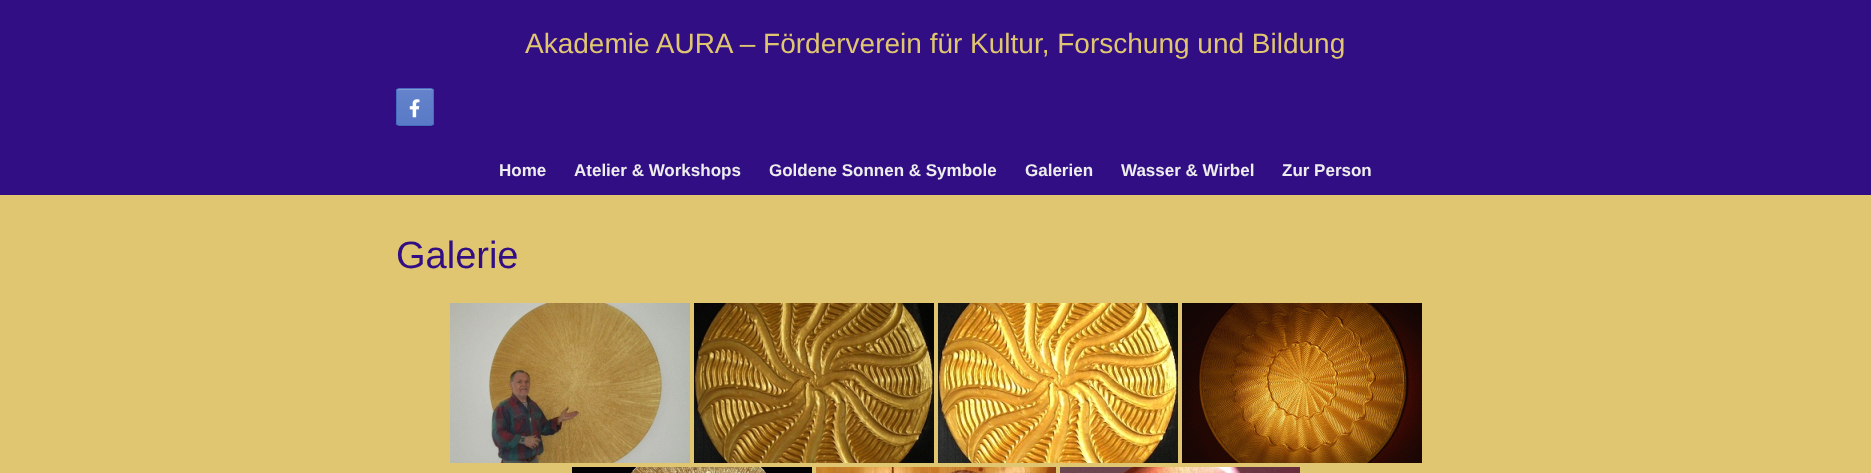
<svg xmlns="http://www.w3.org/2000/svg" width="1871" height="473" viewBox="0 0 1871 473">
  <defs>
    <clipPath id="clip1"><rect x="396" y="88" width="38" height="38" rx="3"/></clipPath>
    <linearGradient id="g1" gradientUnits="userSpaceOnUse" x1="397" y1="125" x2="397" y2="89"><stop offset="0" stop-color="rgb(89,122,199)"/><stop offset="1" stop-color="rgb(100,131,203)"/></linearGradient>
  </defs>
  <rect width="100%" height="100%" fill="rgb(49,14,132)"/>
  <text x="525" y="53" font-family="Liberation Sans" font-size="28" fill="rgb(224,198,112)">Akademie AURA – Förderverein für Kultur, Forschung und Bildung</text>
  <rect x="396" y="89" width="38" height="38" rx="3" fill="rgba(0,0,0,0.1)" filter="blur(0.5px)"/>
  <g clip-path="url(#clip1)">
    <rect x="396" y="89" width="38" height="36" fill="url(#g1)"/>
  </g>
  <path d="M399 90H431C432 90 433 91 433 92C433 87.5 429.5 89 425.5 89H404.5C400.5 89 397 87.5 397 92C397 91 398 90 399 90Z" fill="rgb(131,156,213)"/>
  <rect x="396.5" y="88.5" width="37" height="37" rx="2.5" fill="none" stroke="rgb(70,107,193)"/>
  <image x="409" y="99" width="11" height="19" href="pic1.png"/>
  <g font-family="Liberation Sans" font-size="17" font-weight="bold" fill="rgb(237,237,237)">
    <text x="499" y="176">Home</text>
    <text x="574" y="176">Atelier &amp; Workshops</text>
    <text x="769" y="176">Goldene Sonnen &amp; Symbole</text>
    <text x="1025" y="176">Galerien</text>
    <text x="1121" y="176">Wasser &amp; Wirbel</text>
    <text x="1282" y="176">Zur Person</text>
  </g>
  <rect x="0" y="195" width="1871" height="278" fill="rgb(224,198,112)"/>
  <text x="396" y="268" font-family="Liberation Sans" font-size="38" fill="rgb(49,14,132)">Galerie</text>
  <image x="450" y="303" width="240" height="160" href="pic2.png"/>
  <image x="694" y="303" width="240" height="160" href="pic3.png"/>
  <image x="938" y="303" width="240" height="160" href="pic4.png"/>
  <image x="1182" y="303" width="240" height="160" href="pic5.png"/>
  <image x="572" y="467" width="240" height="6" href="pic6.png"/>
  <image x="816" y="467" width="240" height="6" href="pic7.png"/>
  <image x="1060" y="467" width="240" height="6" href="pic8.png"/>
</svg>
